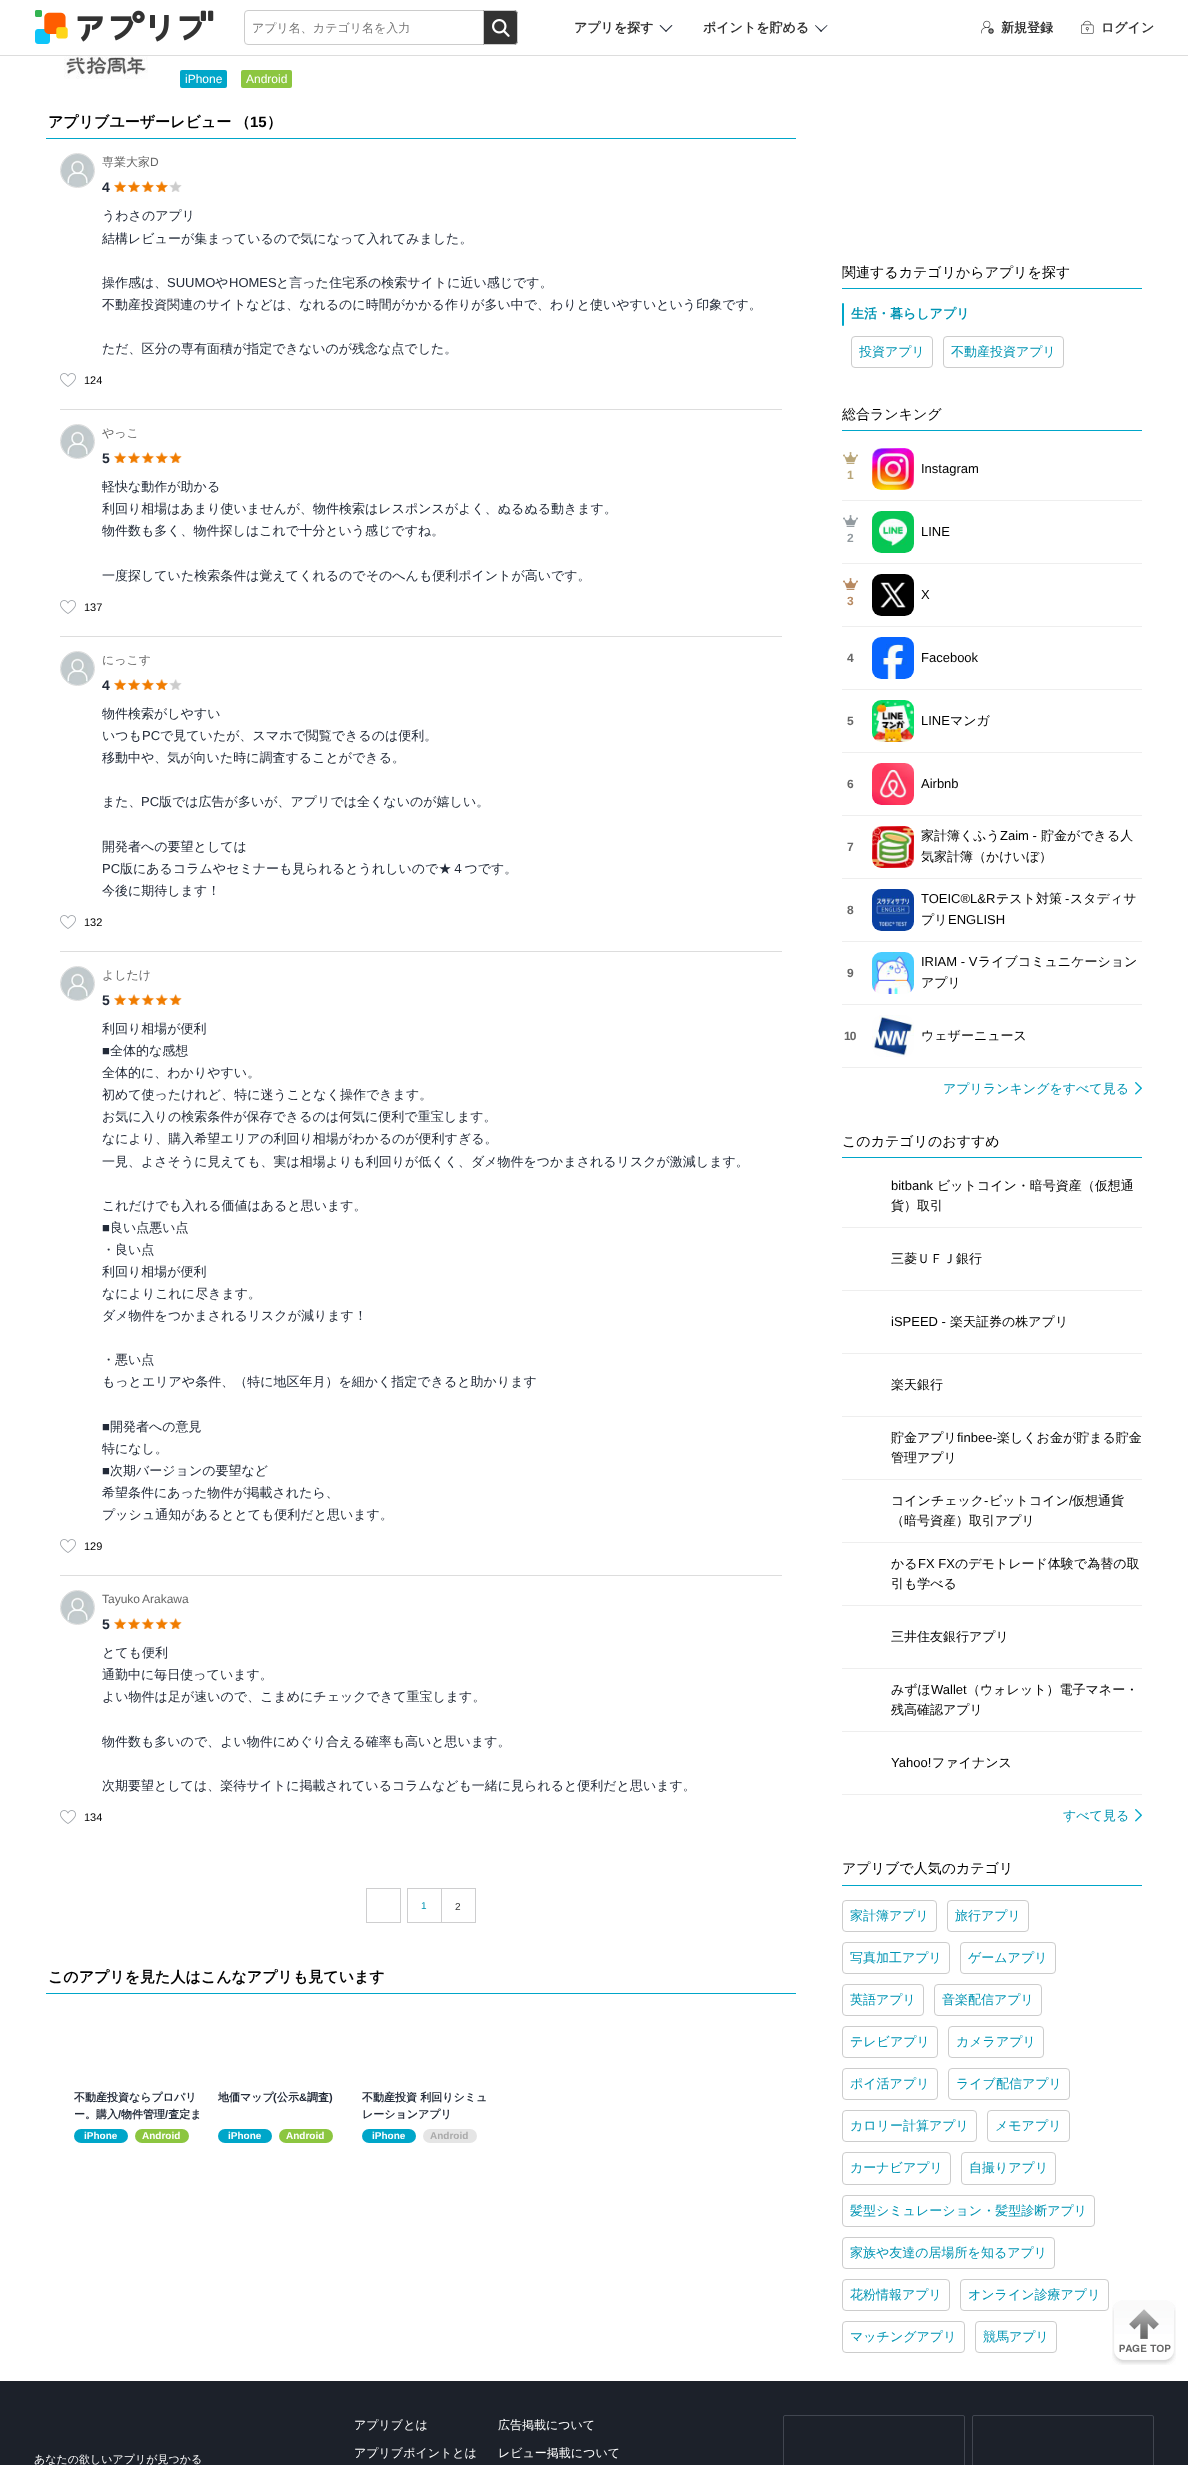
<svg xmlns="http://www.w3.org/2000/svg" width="1188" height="2465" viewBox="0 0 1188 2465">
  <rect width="100%" height="100%" fill="rgb(255,255,255)"/>
  <rect x="0" y="55" width="1188" height="1" fill="rgb(221,221,221)"/>
  <image x="35" y="10" width="179" height="34" href="pic1.png"/>
  <rect x="244.5" y="10.5" width="273" height="34" rx="3.5" fill="none" stroke="rgb(204,204,204)"/>
  <text x="252" y="32" font-family="WenQuanYi Zen Hei" font-size="12" font-weight="500" fill="rgb(117,117,117)">アプリ名、カテゴリ名を入力</text>
  <path d="M483 10H514C516 10 518 12 518 14V41C518 43 516 45 514 45H483Z" fill="rgb(51,51,51)"/>
  <image x="492" y="19" width="18" height="18" href="pic2.png"/>
  <path d="M483.5 10.5H514C516 10.5 517.5 12 517.5 14V41C517.5 43 516 44.5 514 44.5H483.5Z" fill="none" stroke="rgb(204,204,204)"/>
  <text x="574" y="32" font-family="WenQuanYi Zen Hei" font-size="13" font-weight="bold" fill="rgb(51,51,51)">アプリを探す</text>
  <path d="M672.5 25.5L666 32L665.5 31L671.5 25Z" fill="rgb(35,43,57)"/>
  <path d="M666.5 31L666 32L659.5 25.5L660.5 25Z" fill="rgb(35,43,57)"/>
  <text x="703" y="32" font-family="WenQuanYi Zen Hei" font-size="13" font-weight="bold" fill="rgb(51,51,51)">ポイントを貯める</text>
  <path d="M827.5 25.5L821 32L820.5 31L827 25Z" fill="rgb(35,43,57)"/>
  <path d="M822 31L821 32L815 25.5L815.5 25Z" fill="rgb(35,43,57)"/>
  <image x="981" y="20" width="13" height="14" href="pic3.png"/>
  <text x="1001" y="32" font-family="WenQuanYi Zen Hei" font-size="13" font-weight="bold" fill="rgb(51,51,51)">新規登録</text>
  <image x="1081" y="20" width="13" height="14" href="pic4.png"/>
  <text x="1101" y="32" font-family="WenQuanYi Zen Hei" font-size="13" font-weight="bold" fill="rgb(51,51,51)">ログイン</text>
  <image x="64" y="56" width="84" height="23" href="pic5.png"/>
  <rect x="180" y="70" width="47" height="18" rx="2" fill="rgb(0,166,201)"/>
  <text x="185" y="83" font-family="Liberation Sans" font-size="12" fill="rgb(255,255,255)">iPhone</text>
  <rect x="241" y="70" width="51" height="18" rx="2" fill="rgb(140,198,64)"/>
  <text x="246" y="83" font-family="Liberation Sans" font-size="12" fill="rgb(255,255,255)">Android</text>
  <rect x="46" y="138" width="750" height="1" fill="rgb(0,166,201)"/>
  <g font-family="WenQuanYi Zen Hei" font-size="15" font-weight="bold" fill="rgb(0,0,0)">
    <text x="48" y="127">アプリブユーザーレビュー</text>
    <text x="235" y="127">（</text>
  </g>
  <text x="250" y="127" font-family="Liberation Sans" font-size="15" font-weight="bold" fill="rgb(0,0,0)">15</text>
  <text x="267" y="127" font-family="WenQuanYi Zen Hei" font-size="15" font-weight="bold" fill="rgb(0,0,0)">）</text>
  <circle cx="77.5" cy="170.5" r="17" fill="none" stroke="rgb(221,221,221)"/>
  <image x="61" y="154" width="33" height="33" href="pic6.png"/>
  <text x="102" y="166" font-family="WenQuanYi Zen Hei" font-size="12" font-weight="500" fill="rgb(102,102,102)">専業大家</text>
  <text x="150" y="166" font-family="Liberation Sans" font-size="12" fill="rgb(102,102,102)">D</text>
  <text x="102" y="192" font-family="Liberation Sans" font-size="14" font-weight="bold" fill="rgb(35,43,57)">4</text>
  <image x="114" y="181" width="68" height="11" href="pic7.png"/>
  <g font-family="WenQuanYi Zen Hei" font-size="13" font-weight="500" fill="rgb(35,43,57)">
    <text>
      <tspan x="102" y="220">うわさのアプリ</tspan>
      <tspan x="102" y="243">結構レビューが集まっているので気になって入れてみました。</tspan>
    </text>
    <text x="102" y="287">操作感は、</text>
  </g>
  <text x="167" y="287" font-family="Liberation Sans" font-size="13" fill="rgb(35,43,57)">SUUMO</text>
  <text x="215" y="287" font-family="WenQuanYi Zen Hei" font-size="13" font-weight="500" fill="rgb(35,43,57)">や</text>
  <text x="229" y="287" font-family="Liberation Sans" font-size="13" fill="rgb(35,43,57)">HOMES</text>
  <g font-family="WenQuanYi Zen Hei" font-size="13" font-weight="500" fill="rgb(35,43,57)">
    <text x="276" y="287">と言った住宅系の検索サイトに近い感じです。</text>
    <text x="102" y="309">不動産投資関連のサイトなどは、なれるのに時間がかかる作りが多い中で、わりと使いやすいという印象です。</text>
    <text x="102" y="353">ただ、区分の専有面積が指定できないのが残念な点でした。</text>
  </g>
  <image x="60" y="373" width="16" height="14" href="pic8.png"/>
  <text x="84" y="384" font-family="Liberation Sans" font-size="11" fill="rgb(0,0,0)">124</text>
  <rect x="60" y="409" width="722" height="1" fill="rgb(221,221,221)"/>
  <circle cx="77.5" cy="441.5" r="17" fill="none" stroke="rgb(221,221,221)"/>
  <image x="61" y="425" width="33" height="33" href="pic9.png"/>
  <text x="102" y="437" font-family="WenQuanYi Zen Hei" font-size="12" font-weight="500" fill="rgb(102,102,102)">やっこ</text>
  <text x="102" y="463" font-family="Liberation Sans" font-size="14" font-weight="bold" fill="rgb(35,43,57)">5</text>
  <image x="114" y="452" width="68" height="11" href="pic10.png"/>
  <g font-family="WenQuanYi Zen Hei" font-size="13" font-weight="500" fill="rgb(35,43,57)">
    <text>
      <tspan x="102" y="491">軽快な動作が助かる</tspan>
      <tspan x="102" y="513">利回り相場はあまり使いませんが、物件検索はレスポンスがよく、ぬるぬる動きます。</tspan>
      <tspan x="102" y="535">物件数も多く、物件探しはこれで十分という感じですね。</tspan>
    </text>
    <text x="102" y="580">一度探していた検索条件は覚えてくれるのでそのへんも便利ポイントが高いです。</text>
  </g>
  <image x="60" y="600" width="16" height="14" href="pic8.png"/>
  <text x="84" y="611" font-family="Liberation Sans" font-size="11" fill="rgb(0,0,0)">137</text>
  <rect x="60" y="636" width="722" height="1" fill="rgb(221,221,221)"/>
  <circle cx="77.5" cy="668.5" r="17" fill="none" stroke="rgb(221,221,221)"/>
  <image x="61" y="652" width="33" height="33" href="pic9.png"/>
  <text x="102" y="664" font-family="WenQuanYi Zen Hei" font-size="12" font-weight="500" fill="rgb(102,102,102)">にっこす</text>
  <text x="102" y="690" font-family="Liberation Sans" font-size="14" font-weight="bold" fill="rgb(35,43,57)">4</text>
  <image x="114" y="679" width="68" height="11" href="pic7.png"/>
  <g font-family="WenQuanYi Zen Hei" font-size="13" font-weight="500" fill="rgb(35,43,57)">
    <text>
      <tspan x="102" y="718">物件検索がしやすい</tspan>
      <tspan x="102" y="740">いつも</tspan>
    </text>
  </g>
  <text x="142" y="740" font-family="Liberation Sans" font-size="13" fill="rgb(35,43,57)">PC</text>
  <g font-family="WenQuanYi Zen Hei" font-size="13" font-weight="500" fill="rgb(35,43,57)">
    <text x="160" y="740">で見ていたが、スマホで閲覧できるのは便利。</text>
    <text x="102" y="762">移動中や、気が向いた時に調査することができる。</text>
    <text x="102" y="806">また、</text>
  </g>
  <text x="141" y="806" font-family="Liberation Sans" font-size="13" fill="rgb(35,43,57)">PC</text>
  <g font-family="WenQuanYi Zen Hei" font-size="13" font-weight="500" fill="rgb(35,43,57)">
    <text x="159" y="806">版では広告が多いが、アプリでは全くないのが嬉しい。</text>
    <text x="102" y="851">開発者への要望としては</text>
  </g>
  <text x="102" y="873" font-family="Liberation Sans" font-size="13" fill="rgb(35,43,57)">PC</text>
  <g font-family="WenQuanYi Zen Hei" font-size="13" font-weight="500" fill="rgb(35,43,57)">
    <text x="120" y="873">版にあるコラムやセミナーも見られるとうれしいので★４つです。</text>
    <text x="102" y="895">今後に期待します！</text>
  </g>
  <image x="60" y="915" width="16" height="14" href="pic8.png"/>
  <text x="84" y="926" font-family="Liberation Sans" font-size="11" fill="rgb(0,0,0)">132</text>
  <rect x="60" y="951" width="722" height="1" fill="rgb(221,221,221)"/>
  <circle cx="77.5" cy="983.5" r="17" fill="none" stroke="rgb(221,221,221)"/>
  <image x="61" y="967" width="33" height="33" href="pic9.png"/>
  <text x="102" y="979" font-family="WenQuanYi Zen Hei" font-size="12" font-weight="500" fill="rgb(102,102,102)">よしたけ</text>
  <text x="102" y="1005" font-family="Liberation Sans" font-size="14" font-weight="bold" fill="rgb(35,43,57)">5</text>
  <image x="114" y="994" width="68" height="11" href="pic10.png"/>
  <text x="102" y="1033" font-family="WenQuanYi Zen Hei" font-size="13" font-weight="500" fill="rgb(35,43,57)">利回り相場が便利</text>
  <text x="102" y="1055" font-family="Liberation Sans" font-size="13" fill="rgb(35,43,57)">■</text>
  <g font-family="WenQuanYi Zen Hei" font-size="13" font-weight="500" fill="rgb(35,43,57)">
    <text x="110" y="1055">全体的な感想</text>
    <text>
      <tspan x="102" y="1077">全体的に、わかりやすい。</tspan>
      <tspan x="102" y="1099">初めて使ったけれど、特に迷うことなく操作できます。</tspan>
      <tspan x="102" y="1121">お気に入りの検索条件が保存できるのは何気に便利で重宝します。</tspan>
      <tspan x="102" y="1143">なにより、購入希望エリアの利回り相場がわかるのが便利すぎる。</tspan>
      <tspan x="102" y="1166">一見、よさそうに見えても、実は相場よりも利回りが低くく、ダメ物件をつかまされるリスクが激減します。</tspan>
    </text>
    <text x="102" y="1210">これだけでも入れる価値はあると思います。</text>
  </g>
  <text x="102" y="1232" font-family="Liberation Sans" font-size="13" fill="rgb(35,43,57)">■</text>
  <g font-family="WenQuanYi Zen Hei" font-size="13" font-weight="500" fill="rgb(35,43,57)">
    <text x="110" y="1232">良い点悪い点</text>
    <text>
      <tspan x="102" y="1254">・良い点</tspan>
      <tspan x="102" y="1276">利回り相場が便利</tspan>
      <tspan x="102" y="1298">なによりこれに尽きます。</tspan>
      <tspan x="102" y="1320">ダメ物件をつかまされるリスクが減ります！</tspan>
    </text>
    <text>
      <tspan x="102" y="1364">・悪い点</tspan>
      <tspan x="102" y="1386">もっとエリアや条件、（特に地区年月）を細かく指定できると助かります</tspan>
    </text>
  </g>
  <text x="102" y="1431" font-family="Liberation Sans" font-size="13" fill="rgb(35,43,57)">■</text>
  <g font-family="WenQuanYi Zen Hei" font-size="13" font-weight="500" fill="rgb(35,43,57)">
    <text x="110" y="1431">開発者への意見</text>
    <text x="102" y="1453">特になし。</text>
  </g>
  <text x="102" y="1475" font-family="Liberation Sans" font-size="13" fill="rgb(35,43,57)">■</text>
  <g font-family="WenQuanYi Zen Hei" font-size="13" font-weight="500" fill="rgb(35,43,57)">
    <text x="110" y="1475">次期バージョンの要望など</text>
    <text>
      <tspan x="102" y="1497">希望条件にあった物件が掲載されたら、</tspan>
      <tspan x="102" y="1519">プッシュ通知があるととても便利だと思います。</tspan>
    </text>
  </g>
  <image x="60" y="1539" width="16" height="14" href="pic8.png"/>
  <text x="84" y="1550" font-family="Liberation Sans" font-size="11" fill="rgb(0,0,0)">129</text>
  <rect x="60" y="1575" width="722" height="1" fill="rgb(221,221,221)"/>
  <circle cx="77.5" cy="1607.5" r="17" fill="none" stroke="rgb(221,221,221)"/>
  <image x="61" y="1591" width="33" height="33" href="pic9.png"/>
  <g font-family="Liberation Sans" font-size="12" fill="rgb(102,102,102)">
    <text x="102" y="1603">Tayuko</text>
    <text x="142" y="1603">Arakawa</text>
  </g>
  <text x="102" y="1629" font-family="Liberation Sans" font-size="14" font-weight="bold" fill="rgb(35,43,57)">5</text>
  <image x="114" y="1618" width="68" height="11" href="pic10.png"/>
  <g font-family="WenQuanYi Zen Hei" font-size="13" font-weight="500" fill="rgb(35,43,57)">
    <text>
      <tspan x="102" y="1657">とても便利</tspan>
      <tspan x="102" y="1679">通勤中に毎日使っています。</tspan>
      <tspan x="102" y="1701">よい物件は足が速いので、こまめにチェックできて重宝します。</tspan>
    </text>
    <text x="102" y="1746">物件数も多いので、よい物件にめぐり合える確率も高いと思います。</text>
    <text x="102" y="1790">次期要望としては、楽待サイトに掲載されているコラムなども一緒に見られると便利だと思います。</text>
  </g>
  <image x="60" y="1810" width="16" height="14" href="pic8.png"/>
  <text x="84" y="1821" font-family="Liberation Sans" font-size="11" fill="rgb(0,0,0)">134</text>
  <rect x="366.5" y="1888.5" width="34" height="34" fill="none" stroke="rgb(206,206,207)"/>
  <rect x="407.5" y="1888.5" width="34" height="34" fill="none" stroke="rgb(206,206,207)"/>
  <text x="421" y="1909" font-family="Liberation Sans" font-size="10" fill="rgb(0,148,179)">1</text>
  <rect x="441.5" y="1888.5" width="34" height="34" fill="none" stroke="rgb(206,206,207)"/>
  <text x="455" y="1910" font-family="Liberation Sans" font-size="10" fill="rgb(51,51,51)">2</text>
  <rect x="46" y="1993" width="750" height="1" fill="rgb(0,166,201)"/>
  <text x="48" y="1982" font-family="WenQuanYi Zen Hei" font-size="15" font-weight="bold" fill="rgb(0,0,0)">このアプリを見た人はこんなアプリも見ています</text>
  <g font-family="WenQuanYi Zen Hei" font-size="11" font-weight="bold" fill="rgb(35,43,57)">
    <text>
      <tspan x="74" y="2101">不動産投資ならプロパリ</tspan>
      <tspan x="74" y="2118">ー。購入</tspan>
    </text>
  </g>
  <text x="118" y="2118" font-family="Liberation Sans" font-size="11" font-weight="bold" fill="rgb(35,43,57)">/</text>
  <text x="121" y="2118" font-family="WenQuanYi Zen Hei" font-size="11" font-weight="bold" fill="rgb(35,43,57)">物件管理 査定ま</text>
  <text x="165" y="2118" font-family="Liberation Sans" font-size="11" font-weight="bold" fill="rgb(35,43,57)">/</text>
  <rect x="74" y="2129" width="54" height="14" rx="7" fill="rgb(0,166,201)"/>
  <text x="84" y="2139" font-family="Liberation Sans" font-size="10" font-weight="bold" fill="rgb(255,255,255)">iPhone</text>
  <rect x="135" y="2129" width="54" height="14" rx="7" fill="rgb(140,198,64)"/>
  <text x="142" y="2139" font-family="Liberation Sans" font-size="10" font-weight="bold" fill="rgb(255,255,255)">Android</text>
  <text x="218" y="2101" font-family="WenQuanYi Zen Hei" font-size="11" font-weight="bold" fill="rgb(35,43,57)">地価マップ</text>
  <text x="273" y="2101" font-family="Liberation Sans" font-size="11" font-weight="bold" fill="rgb(35,43,57)">(</text>
  <text x="277" y="2101" font-family="WenQuanYi Zen Hei" font-size="11" font-weight="bold" fill="rgb(35,43,57)">公示</text>
  <text x="299" y="2101" font-family="Liberation Sans" font-size="11" font-weight="bold" fill="rgb(35,43,57)">&amp;</text>
  <text x="307" y="2101" font-family="WenQuanYi Zen Hei" font-size="11" font-weight="bold" fill="rgb(35,43,57)">調査</text>
  <text x="329" y="2101" font-family="Liberation Sans" font-size="11" font-weight="bold" fill="rgb(35,43,57)">)</text>
  <rect x="218" y="2129" width="54" height="14" rx="7" fill="rgb(0,166,201)"/>
  <text x="228" y="2139" font-family="Liberation Sans" font-size="10" font-weight="bold" fill="rgb(255,255,255)">iPhone</text>
  <rect x="279" y="2129" width="54" height="14" rx="7" fill="rgb(140,198,64)"/>
  <text x="286" y="2139" font-family="Liberation Sans" font-size="10" font-weight="bold" fill="rgb(255,255,255)">Android</text>
  <g font-family="WenQuanYi Zen Hei" font-size="11" font-weight="bold" fill="rgb(35,43,57)">
    <text>
      <tspan x="362" y="2101">不動産投資 利回りシミュ</tspan>
      <tspan x="362" y="2118">レーションアプリ</tspan>
    </text>
  </g>
  <rect x="362" y="2129" width="54" height="14" rx="7" fill="rgb(0,166,201)"/>
  <text x="372" y="2139" font-family="Liberation Sans" font-size="10" font-weight="bold" fill="rgb(255,255,255)">iPhone</text>
  <rect x="423" y="2129" width="54" height="14" rx="7" fill="rgb(229,229,229)"/>
  <text x="430" y="2139" font-family="Liberation Sans" font-size="10" font-weight="bold" fill="rgb(170,170,170)">Android</text>
  <rect x="842" y="288" width="300" height="1" fill="rgb(0,166,201)"/>
  <text x="842" y="277" font-family="WenQuanYi Zen Hei" font-size="14" font-weight="500" fill="rgb(0,0,0)">関連するカテゴリからアプリを探す</text>
  <rect x="842" y="303" width="2" height="23" rx="1" fill="rgb(0,166,201)"/>
  <text x="851" y="318" font-family="WenQuanYi Zen Hei" font-size="13" font-weight="bold" fill="rgb(0,148,179)">生活・暮らしアプリ</text>
  <rect x="851.5" y="336.5" width="81" height="31" rx="3.5" fill="none" stroke="rgb(204,204,204)"/>
  <text x="859" y="356" font-family="WenQuanYi Zen Hei" font-size="13" font-weight="500" fill="rgb(0,148,179)">投資アプリ</text>
  <rect x="943.5" y="336.5" width="120" height="31" rx="3.5" fill="none" stroke="rgb(204,204,204)"/>
  <text x="951" y="356" font-family="WenQuanYi Zen Hei" font-size="13" font-weight="500" fill="rgb(0,148,179)">不動産投資アプリ</text>
  <rect x="842" y="430" width="300" height="1" fill="rgb(0,166,201)"/>
  <text x="842" y="419" font-family="WenQuanYi Zen Hei" font-size="14" font-weight="500" fill="rgb(0,0,0)">総合ランキング</text>
  <rect x="842" y="500" width="300" height="1" fill="rgb(238,238,238)"/>
  <image x="843" y="452" width="15" height="12" href="pic11.png"/>
  <text x="847" y="479" font-family="Liberation Sans" font-size="12" font-weight="bold" letter-spacing="-1" fill="rgb(185,166,121)">1</text>
  <image x="872" y="448" width="42" height="42" href="pic12.png"/>
  <text x="921" y="473" font-family="Liberation Sans" font-size="13" fill="rgb(0,0,0)">Instagram</text>
  <rect x="842" y="563" width="300" height="1" fill="rgb(238,238,238)"/>
  <image x="872" y="511" width="42" height="42" href="pic13.png"/>
  <text x="921" y="536" font-family="Liberation Sans" font-size="13" fill="rgb(0,0,0)">LINE</text>
  <image x="843" y="515" width="15" height="12" href="pic14.png"/>
  <text x="847" y="542" font-family="Liberation Sans" font-size="12" font-weight="bold" letter-spacing="-1" fill="rgb(147,155,160)">2</text>
  <rect x="842" y="626" width="300" height="1" fill="rgb(238,238,238)"/>
  <image x="872" y="574" width="42" height="42" href="pic15.png"/>
  <text x="921" y="599" font-family="Liberation Sans" font-size="13" fill="rgb(0,0,0)">X</text>
  <image x="843" y="578" width="15" height="12" href="pic16.png"/>
  <text x="847" y="605" font-family="Liberation Sans" font-size="12" font-weight="bold" letter-spacing="-1" fill="rgb(183,137,97)">3</text>
  <rect x="842" y="689" width="300" height="1" fill="rgb(238,238,238)"/>
  <text x="847" y="662" font-family="Liberation Sans" font-size="12" font-weight="bold" letter-spacing="-1" fill="rgb(102,102,102)">4</text>
  <image x="872" y="637" width="42" height="42" href="pic17.png"/>
  <text x="921" y="662" font-family="Liberation Sans" font-size="13" fill="rgb(0,0,0)">Facebook</text>
  <rect x="842" y="752" width="300" height="1" fill="rgb(238,238,238)"/>
  <text x="847" y="725" font-family="Liberation Sans" font-size="12" font-weight="bold" letter-spacing="-1" fill="rgb(102,102,102)">5</text>
  <image x="872" y="700" width="42" height="42" href="pic18.png"/>
  <text x="921" y="725" font-family="Liberation Sans" font-size="13" fill="rgb(0,0,0)">LINE</text>
  <text x="950" y="725" font-family="WenQuanYi Zen Hei" font-size="13" font-weight="500" fill="rgb(0,0,0)">マンガ</text>
  <rect x="842" y="815" width="300" height="1" fill="rgb(238,238,238)"/>
  <text x="847" y="788" font-family="Liberation Sans" font-size="12" font-weight="bold" letter-spacing="-1" fill="rgb(102,102,102)">6</text>
  <image x="872" y="763" width="42" height="42" href="pic19.png"/>
  <text x="921" y="788" font-family="Liberation Sans" font-size="13" fill="rgb(0,0,0)">Airbnb</text>
  <rect x="842" y="878" width="300" height="1" fill="rgb(238,238,238)"/>
  <text x="847" y="851" font-family="Liberation Sans" font-size="12" font-weight="bold" letter-spacing="-1" fill="rgb(102,102,102)">7</text>
  <image x="872" y="826" width="42" height="42" href="pic20.png"/>
  <text x="921" y="840" font-family="WenQuanYi Zen Hei" font-size="13" font-weight="500" fill="rgb(0,0,0)">家計簿くふう</text>
  <text x="1000" y="840" font-family="Liberation Sans" font-size="13" fill="rgb(0,0,0)">Zaim -</text>
  <g font-family="WenQuanYi Zen Hei" font-size="13" font-weight="500" fill="rgb(0,0,0)">
    <text x="1041" y="840">貯金ができる人</text>
    <text x="921" y="861">気家計簿（かけいぼ）</text>
  </g>
  <rect x="842" y="941" width="300" height="1" fill="rgb(238,238,238)"/>
  <text x="847" y="914" font-family="Liberation Sans" font-size="12" font-weight="bold" letter-spacing="-1" fill="rgb(102,102,102)">8</text>
  <image x="872" y="889" width="42" height="42" href="pic21.png"/>
  <text x="921" y="903" font-family="Liberation Sans" font-size="13" fill="rgb(0,0,0)">TOEIC®L&amp;R</text>
  <text x="996" y="903" font-family="WenQuanYi Zen Hei" font-size="13" font-weight="500" fill="rgb(0,0,0)">テスト対策</text>
  <text x="1065" y="903" font-family="Liberation Sans" font-size="13" fill="rgb(0,0,0)">-</text>
  <g font-family="WenQuanYi Zen Hei" font-size="13" font-weight="500" fill="rgb(0,0,0)">
    <text x="1070" y="903">スタディサ</text>
    <text x="921" y="924">プリ</text>
  </g>
  <text x="948" y="924" font-family="Liberation Sans" font-size="13" fill="rgb(0,0,0)">ENGLISH</text>
  <rect x="842" y="1004" width="300" height="1" fill="rgb(238,238,238)"/>
  <text x="847" y="977" font-family="Liberation Sans" font-size="12" font-weight="bold" letter-spacing="-1" fill="rgb(102,102,102)">9</text>
  <image x="872" y="952" width="42" height="42" href="pic22.png"/>
  <text x="921" y="966" font-family="Liberation Sans" font-size="13" fill="rgb(0,0,0)">IRIAM - V</text>
  <g font-family="WenQuanYi Zen Hei" font-size="13" font-weight="500" fill="rgb(0,0,0)">
    <text x="978" y="966">ライブコミュニケーション</text>
    <text x="921" y="987">アプリ</text>
  </g>
  <rect x="842" y="1067" width="300" height="1" fill="rgb(238,238,238)"/>
  <text x="844" y="1040" font-family="Liberation Sans" font-size="12" font-weight="bold" letter-spacing="-1" fill="rgb(102,102,102)">10</text>
  <image x="872" y="1015" width="42" height="42" href="pic23.png"/>
  <text x="921" y="1040" font-family="WenQuanYi Zen Hei" font-size="13" font-weight="500" fill="rgb(0,0,0)">ウェザーニュース</text>
  <image x="1135" y="1082" width="7" height="13" href="pic24.png"/>
  <text x="943" y="1093" font-family="WenQuanYi Zen Hei" font-size="13" font-weight="500" fill="rgb(0,148,179)">アプリランキングをすべて見る</text>
  <rect x="842" y="1157" width="300" height="1" fill="rgb(0,166,201)"/>
  <text x="842" y="1146" font-family="WenQuanYi Zen Hei" font-size="14" font-weight="500" fill="rgb(0,0,0)">このカテゴリのおすすめ</text>
  <rect x="842" y="1227" width="300" height="1" fill="rgb(238,238,238)"/>
  <text x="891" y="1190" font-family="Liberation Sans" font-size="13" fill="rgb(0,0,0)">bitbank</text>
  <g font-family="WenQuanYi Zen Hei" font-size="13" font-weight="500" fill="rgb(0,0,0)">
    <text x="937" y="1190">ビットコイン・暗号資産（仮想通</text>
    <text x="891" y="1210">貨）取引</text>
  </g>
  <rect x="842" y="1290" width="300" height="1" fill="rgb(238,238,238)"/>
  <text x="891" y="1263" font-family="WenQuanYi Zen Hei" font-size="13" font-weight="500" fill="rgb(0,0,0)">三菱ＵＦＪ銀行</text>
  <rect x="842" y="1353" width="300" height="1" fill="rgb(238,238,238)"/>
  <text x="891" y="1326" font-family="Liberation Sans" font-size="13" fill="rgb(0,0,0)">iSPEED -</text>
  <text x="950" y="1326" font-family="WenQuanYi Zen Hei" font-size="13" font-weight="500" fill="rgb(0,0,0)">楽天証券の株アプリ</text>
  <rect x="842" y="1416" width="300" height="1" fill="rgb(238,238,238)"/>
  <text x="891" y="1389" font-family="WenQuanYi Zen Hei" font-size="13" font-weight="500" fill="rgb(0,0,0)">楽天銀行</text>
  <rect x="842" y="1479" width="300" height="1" fill="rgb(238,238,238)"/>
  <text x="891" y="1442" font-family="WenQuanYi Zen Hei" font-size="13" font-weight="500" fill="rgb(0,0,0)">貯金アプリ</text>
  <text x="957" y="1442" font-family="Liberation Sans" font-size="13" fill="rgb(0,0,0)">finbee-</text>
  <g font-family="WenQuanYi Zen Hei" font-size="13" font-weight="500" fill="rgb(0,0,0)">
    <text x="997" y="1442">楽しくお金が貯まる貯金</text>
    <text x="891" y="1462">管理アプリ</text>
  </g>
  <rect x="842" y="1542" width="300" height="1" fill="rgb(238,238,238)"/>
  <text x="891" y="1505" font-family="WenQuanYi Zen Hei" font-size="13" font-weight="500" fill="rgb(0,0,0)">コインチェック</text>
  <text x="984" y="1505" font-family="Liberation Sans" font-size="13" fill="rgb(0,0,0)">-</text>
  <text x="989" y="1505" font-family="WenQuanYi Zen Hei" font-size="13" font-weight="500" fill="rgb(0,0,0)">ビットコイン</text>
  <text x="1069" y="1505" font-family="Liberation Sans" font-size="13" fill="rgb(0,0,0)">/</text>
  <g font-family="WenQuanYi Zen Hei" font-size="13" font-weight="500" fill="rgb(0,0,0)">
    <text x="1072" y="1505">仮想通貨</text>
    <text x="891" y="1525">（暗号資産）取引アプリ</text>
  </g>
  <rect x="842" y="1605" width="300" height="1" fill="rgb(238,238,238)"/>
  <text x="891" y="1568" font-family="WenQuanYi Zen Hei" font-size="13" font-weight="500" fill="rgb(0,0,0)">かる</text>
  <text x="918" y="1568" font-family="Liberation Sans" font-size="13" fill="rgb(0,0,0)">FX FX</text>
  <g font-family="WenQuanYi Zen Hei" font-size="13" font-weight="500" fill="rgb(0,0,0)">
    <text x="955" y="1568">のデモトレード体験で為替の取</text>
    <text x="891" y="1588">引も学べる</text>
  </g>
  <rect x="842" y="1668" width="300" height="1" fill="rgb(238,238,238)"/>
  <text x="891" y="1641" font-family="WenQuanYi Zen Hei" font-size="13" font-weight="500" fill="rgb(0,0,0)">三井住友銀行アプリ</text>
  <rect x="842" y="1731" width="300" height="1" fill="rgb(238,238,238)"/>
  <text x="891" y="1694" font-family="WenQuanYi Zen Hei" font-size="13" font-weight="500" fill="rgb(0,0,0)">みずほ</text>
  <text x="931" y="1694" font-family="Liberation Sans" font-size="13" fill="rgb(0,0,0)">Wallet</text>
  <g font-family="WenQuanYi Zen Hei" font-size="13" font-weight="500" fill="rgb(0,0,0)">
    <text x="967" y="1694">（ウォレット）電子マネー・</text>
    <text x="891" y="1714">残高確認アプリ</text>
  </g>
  <rect x="842" y="1794" width="300" height="1" fill="rgb(238,238,238)"/>
  <text x="891" y="1767" font-family="Liberation Sans" font-size="13" fill="rgb(0,0,0)">Yahoo!</text>
  <text x="932" y="1767" font-family="WenQuanYi Zen Hei" font-size="13" font-weight="500" fill="rgb(0,0,0)">ファイナンス</text>
  <image x="1135" y="1809" width="7" height="13" href="pic24.png"/>
  <text x="1063" y="1820" font-family="WenQuanYi Zen Hei" font-size="13" font-weight="500" fill="rgb(0,148,179)">すべて見る</text>
  <rect x="842" y="1885" width="300" height="1" fill="rgb(0,166,201)"/>
  <text x="842" y="1873" font-family="WenQuanYi Zen Hei" font-size="14" font-weight="500" fill="rgb(0,0,0)">アプリブで人気のカテゴリ</text>
  <rect x="842.5" y="1900.5" width="94" height="31" rx="3.5" fill="none" stroke="rgb(204,204,204)"/>
  <text x="850" y="1920" font-family="WenQuanYi Zen Hei" font-size="13" font-weight="500" fill="rgb(0,148,179)">家計簿アプリ</text>
  <rect x="947.5" y="1900.5" width="81" height="31" rx="3.5" fill="none" stroke="rgb(204,204,204)"/>
  <text x="955" y="1920" font-family="WenQuanYi Zen Hei" font-size="13" font-weight="500" fill="rgb(0,148,179)">旅行アプリ</text>
  <rect x="842.5" y="1942.5" width="107" height="31" rx="3.5" fill="none" stroke="rgb(204,204,204)"/>
  <text x="850" y="1962" font-family="WenQuanYi Zen Hei" font-size="13" font-weight="500" fill="rgb(0,148,179)">写真加工アプリ</text>
  <rect x="960.5" y="1942.5" width="95" height="31" rx="3.5" fill="none" stroke="rgb(204,204,204)"/>
  <text x="968" y="1962" font-family="WenQuanYi Zen Hei" font-size="13" font-weight="500" fill="rgb(0,148,179)">ゲームアプリ</text>
  <rect x="842.5" y="1984.5" width="81" height="31" rx="3.5" fill="none" stroke="rgb(204,204,204)"/>
  <text x="850" y="2004" font-family="WenQuanYi Zen Hei" font-size="13" font-weight="500" fill="rgb(0,148,179)">英語アプリ</text>
  <rect x="934.5" y="1984.5" width="107" height="31" rx="3.5" fill="none" stroke="rgb(204,204,204)"/>
  <text x="942" y="2004" font-family="WenQuanYi Zen Hei" font-size="13" font-weight="500" fill="rgb(0,148,179)">音楽配信アプリ</text>
  <rect x="842.5" y="2026.5" width="95" height="31" rx="3.5" fill="none" stroke="rgb(204,204,204)"/>
  <text x="850" y="2046" font-family="WenQuanYi Zen Hei" font-size="13" font-weight="500" fill="rgb(0,148,179)">テレビアプリ</text>
  <rect x="948.5" y="2026.5" width="95" height="31" rx="3.5" fill="none" stroke="rgb(204,204,204)"/>
  <text x="956" y="2046" font-family="WenQuanYi Zen Hei" font-size="13" font-weight="500" fill="rgb(0,148,179)">カメラアプリ</text>
  <rect x="842.5" y="2068.5" width="95" height="31" rx="3.5" fill="none" stroke="rgb(204,204,204)"/>
  <text x="850" y="2088" font-family="WenQuanYi Zen Hei" font-size="13" font-weight="500" fill="rgb(0,148,179)">ポイ活アプリ</text>
  <rect x="948.5" y="2068.5" width="121" height="31" rx="3.5" fill="none" stroke="rgb(204,204,204)"/>
  <text x="956" y="2088" font-family="WenQuanYi Zen Hei" font-size="13" font-weight="500" fill="rgb(0,148,179)">ライブ配信アプリ</text>
  <rect x="842.5" y="2110.5" width="134" height="31" rx="3.5" fill="none" stroke="rgb(204,204,204)"/>
  <text x="850" y="2130" font-family="WenQuanYi Zen Hei" font-size="13" font-weight="500" fill="rgb(0,148,179)">カロリー計算アプリ</text>
  <rect x="987.5" y="2110.5" width="82" height="31" rx="3.5" fill="none" stroke="rgb(204,204,204)"/>
  <text x="995" y="2130" font-family="WenQuanYi Zen Hei" font-size="13" font-weight="500" fill="rgb(0,148,179)">メモアプリ</text>
  <rect x="842.5" y="2152.5" width="108" height="32" rx="3.5" fill="none" stroke="rgb(204,204,204)"/>
  <text x="850" y="2172" font-family="WenQuanYi Zen Hei" font-size="13" font-weight="500" fill="rgb(0,148,179)">カーナビアプリ</text>
  <rect x="961.5" y="2152.5" width="94" height="32" rx="3.5" fill="none" stroke="rgb(204,204,204)"/>
  <text x="969" y="2172" font-family="WenQuanYi Zen Hei" font-size="13" font-weight="500" fill="rgb(0,148,179)">自撮りアプリ</text>
  <rect x="842.5" y="2195.5" width="252" height="31" rx="3.5" fill="none" stroke="rgb(204,204,204)"/>
  <text x="850" y="2215" font-family="WenQuanYi Zen Hei" font-size="13" font-weight="500" fill="rgb(0,148,179)">髪型シミュレーション・髪型診断アプリ</text>
  <rect x="842.5" y="2237.5" width="212" height="31" rx="3.5" fill="none" stroke="rgb(204,204,204)"/>
  <text x="850" y="2257" font-family="WenQuanYi Zen Hei" font-size="13" font-weight="500" fill="rgb(0,148,179)">家族や友達の居場所を知るアプリ</text>
  <rect x="842.5" y="2279.5" width="107" height="31" rx="3.5" fill="none" stroke="rgb(204,204,204)"/>
  <text x="850" y="2299" font-family="WenQuanYi Zen Hei" font-size="13" font-weight="500" fill="rgb(0,148,179)">花粉情報アプリ</text>
  <rect x="960.5" y="2279.5" width="148" height="31" rx="3.5" fill="none" stroke="rgb(204,204,204)"/>
  <text x="968" y="2299" font-family="WenQuanYi Zen Hei" font-size="13" font-weight="500" fill="rgb(0,148,179)">オンライン診療アプリ</text>
  <rect x="842.5" y="2321.5" width="122" height="31" rx="3.5" fill="none" stroke="rgb(204,204,204)"/>
  <text x="850" y="2341" font-family="WenQuanYi Zen Hei" font-size="13" font-weight="500" fill="rgb(0,148,179)">マッチングアプリ</text>
  <rect x="975.5" y="2321.5" width="81" height="31" rx="3.5" fill="none" stroke="rgb(204,204,204)"/>
  <text x="983" y="2341" font-family="WenQuanYi Zen Hei" font-size="13" font-weight="500" fill="rgb(0,148,179)">競馬アプリ</text>
  <image x="1112" y="2300" width="64" height="65" href="pic25.png"/>
  <rect x="0" y="2381" width="1188" height="84" fill="rgb(28,33,42)"/>
  <text x="34" y="2463" font-family="WenQuanYi Zen Hei" font-size="11" font-weight="500" fill="rgb(255,255,255)">あなたの欲しいアプリが見つかる</text>
  <g font-family="WenQuanYi Zen Hei" font-size="12" font-weight="500" fill="rgb(255,255,255)">
    <text x="354" y="2429">アプリブとは</text>
    <text x="354" y="2457">アプリブポイントとは</text>
    <text x="498" y="2429">広告掲載について</text>
    <text x="498" y="2457">レビュー掲載について</text>
  </g>
  <rect x="783.5" y="2415.5" width="181" height="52" rx="1.5" fill="none" stroke="rgb(65,70,80)"/>
  <rect x="972.5" y="2415.5" width="181" height="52" rx="1.5" fill="none" stroke="rgb(65,70,80)"/>
</svg>
